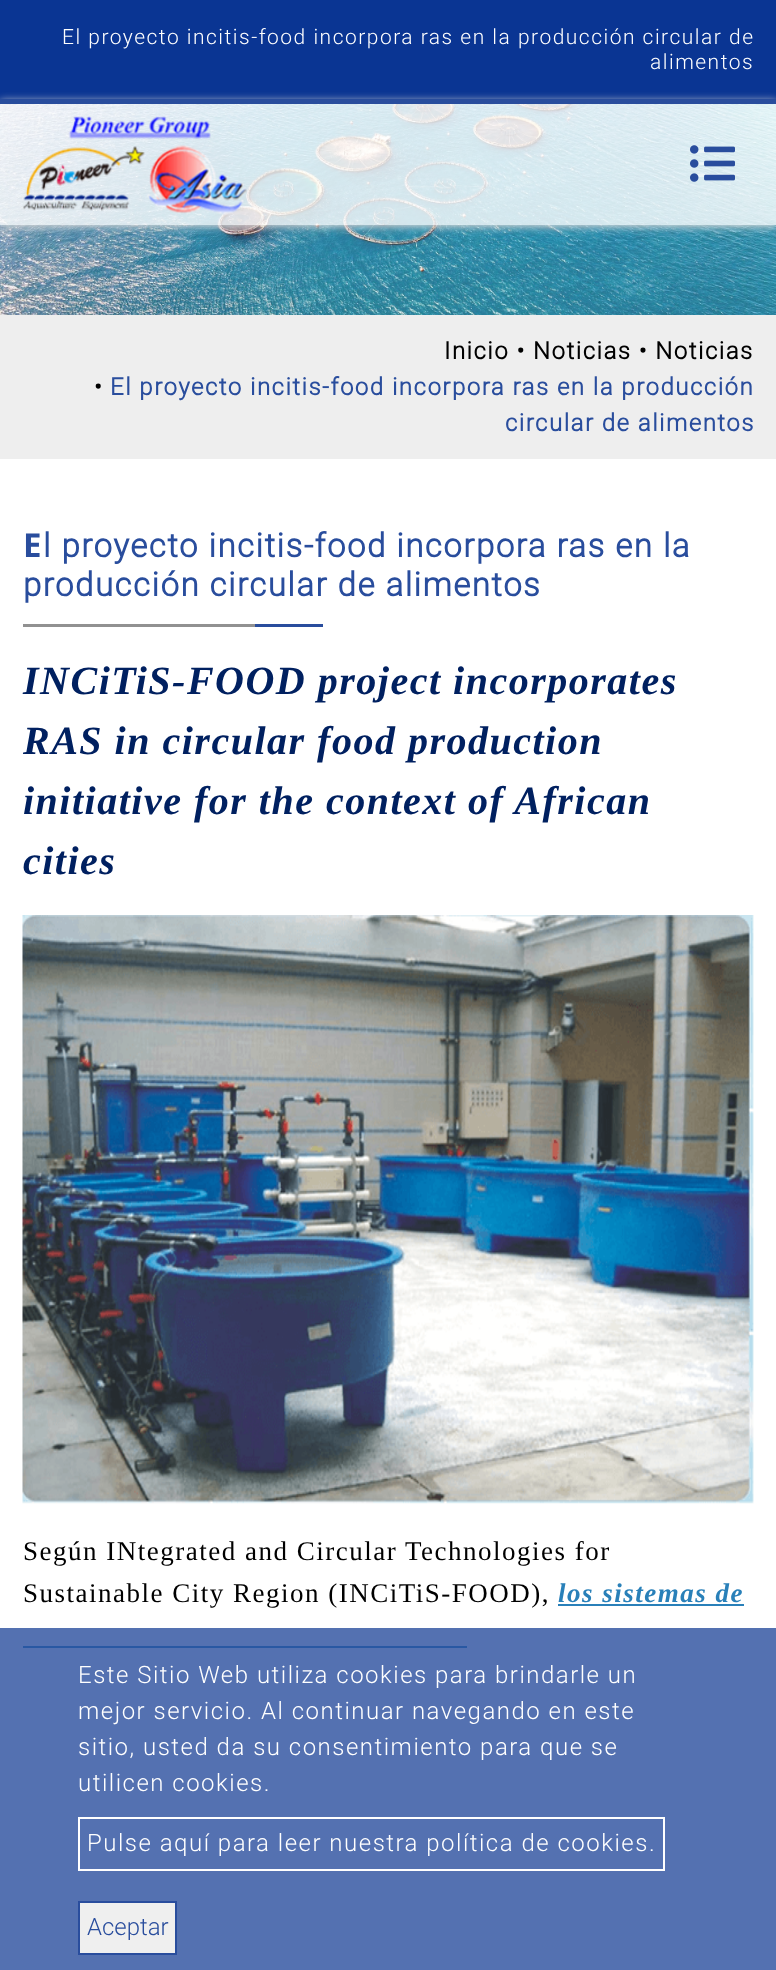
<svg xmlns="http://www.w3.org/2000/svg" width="776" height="1970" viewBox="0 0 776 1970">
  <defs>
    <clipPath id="clip1"><path d="M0 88H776V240H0ZM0 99H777V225H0Z" clip-rule="evenodd"/></clipPath>
  </defs>
  <rect width="100%" height="100%" fill="rgb(255,255,255)"/>
  <rect x="0" y="0" width="776" height="99" fill="rgb(10,53,147)"/>
  <g font-family="Roboto" font-size="21" font-weight="300" letter-spacing="1.5" fill="rgb(255,255,255)">
    <text x="62" y="44">El proyecto incitis-food incorpora ras en la producción circular de</text>
    <text x="650" y="69">alimentos</text>
  </g>
  <image x="0" y="104" width="776" height="211" href="pic3.png"/>
  <g clip-path="url(#clip1)">
    <rect x="0" y="101" width="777" height="126" fill="rgb(219,216,216)" filter="blur(4px)"/>
  </g>
  <rect x="0" y="104" width="776" height="121" fill="rgba(255,255,255,0.8)"/>
  <rect x="0" y="99" width="776" height="5" fill="rgb(41,77,157)"/>
  <image x="22" y="116" width="225" height="99" href="pic1.png"/>
  <path d="M696 151.5H729M696 163.5H729M696 175.5H729" fill="none" stroke="rgba(255,255,255,0.5)" stroke-width="3" stroke-linecap="round"/>
  <image x="690" y="145" width="45" height="37" href="pic2.png"/>
  <rect x="0" y="315" width="776" height="144" fill="rgb(238,238,238)"/>
  <g font-family="Roboto" font-size="24" font-weight="bold" letter-spacing="1.5" fill="rgb(0,0,0)">
    <text x="444" y="359">Inicio • Noticias • Noticias</text>
    <text x="94" y="395">•</text>
  </g>
  <g font-family="Roboto" font-size="24" font-weight="bold" letter-spacing="1.5" fill="rgb(41,77,157)">
    <text x="110" y="395">El proyecto incitis-food incorpora ras en la producción</text>
    <text x="505" y="431">circular de alimentos</text>
  </g>
  <text x="23" y="557" font-family="Noto Sans" font-size="33" font-weight="bold" letter-spacing="1.5" fill="rgb(41,77,157)">E</text>
  <g font-family="Roboto" font-size="33" font-weight="bold" letter-spacing="1.5" fill="rgb(41,77,157)">
    <text x="43" y="557">l proyecto incitis-food incorpora ras en la</text>
    <text x="23" y="596">producción circular de alimentos</text>
  </g>
  <rect x="23" y="624" width="232" height="3" fill="rgb(145,145,145)"/>
  <rect x="255" y="624" width="68" height="3" fill="rgb(41,77,157)"/>
  <g font-family="Liberation Serif" font-size="40" font-weight="bold" font-style="italic" letter-spacing="1.5" fill="rgb(0,32,96)">
    <text>
      <tspan x="23" y="694">INCiTiS-FOOD project incorporates</tspan>
      <tspan x="23" y="754">RAS in circular food production</tspan>
      <tspan x="23" y="814">initiative for the context of African</tspan>
      <tspan x="23" y="874">cities</tspan>
    </text>
  </g>
  <image x="22" y="915" width="732" height="589" href="pic4.png"/>
  <g font-family="Liberation Serif" font-size="27" letter-spacing="1.5" fill="rgb(0,0,0)">
    <text>
      <tspan x="23" y="1560">Según INtegrated and Circular Technologies for</tspan>
      <tspan x="23" y="1602">Sustainable City Region (INCiTiS-FOOD),</tspan>
    </text>
  </g>
  <rect x="23" y="1646" width="444" height="2" fill="rgb(41,128,185)"/>
  <text x="558" y="1602" font-family="Liberation Serif" font-size="27" font-weight="bold" font-style="italic" letter-spacing="1.5" fill="rgb(41,128,185)">los sistemas de</text>
  <rect x="558" y="1604" width="186" height="2" fill="rgb(41,128,185)"/>
  <rect x="0" y="1628" width="776" height="342" fill="rgba(41,77,157,0.8)"/>
  <g font-family="Roboto" font-size="24" font-weight="300" letter-spacing="1.5" fill="rgb(255,255,255)">
    <text>
      <tspan x="78" y="1683">Este Sitio Web utiliza cookies para brindarle un</tspan>
      <tspan x="78" y="1719">mejor servicio. Al continuar navegando en este</tspan>
      <tspan x="78" y="1755">sitio, usted da su consentimiento para que se</tspan>
      <tspan x="78" y="1791">utilicen cookies.</tspan>
    </text>
  </g>
  <rect x="79" y="1818" width="585" height="52" fill="none" stroke="rgb(255,255,255)" stroke-width="2"/>
  <text x="87" y="1851" font-family="Roboto" font-size="24" font-weight="300" letter-spacing="1.5" fill="rgb(255,255,255)">Pulse aquí para leer nuestra política de cookies.</text>
  <rect x="79" y="1902" width="97" height="52" fill="rgb(239,239,239)" stroke="rgb(41,77,157)" stroke-width="2"/>
  <text x="87" y="1935" font-family="Roboto" font-size="24" font-weight="300" fill="rgb(41,77,157)">Aceptar</text>
</svg>
